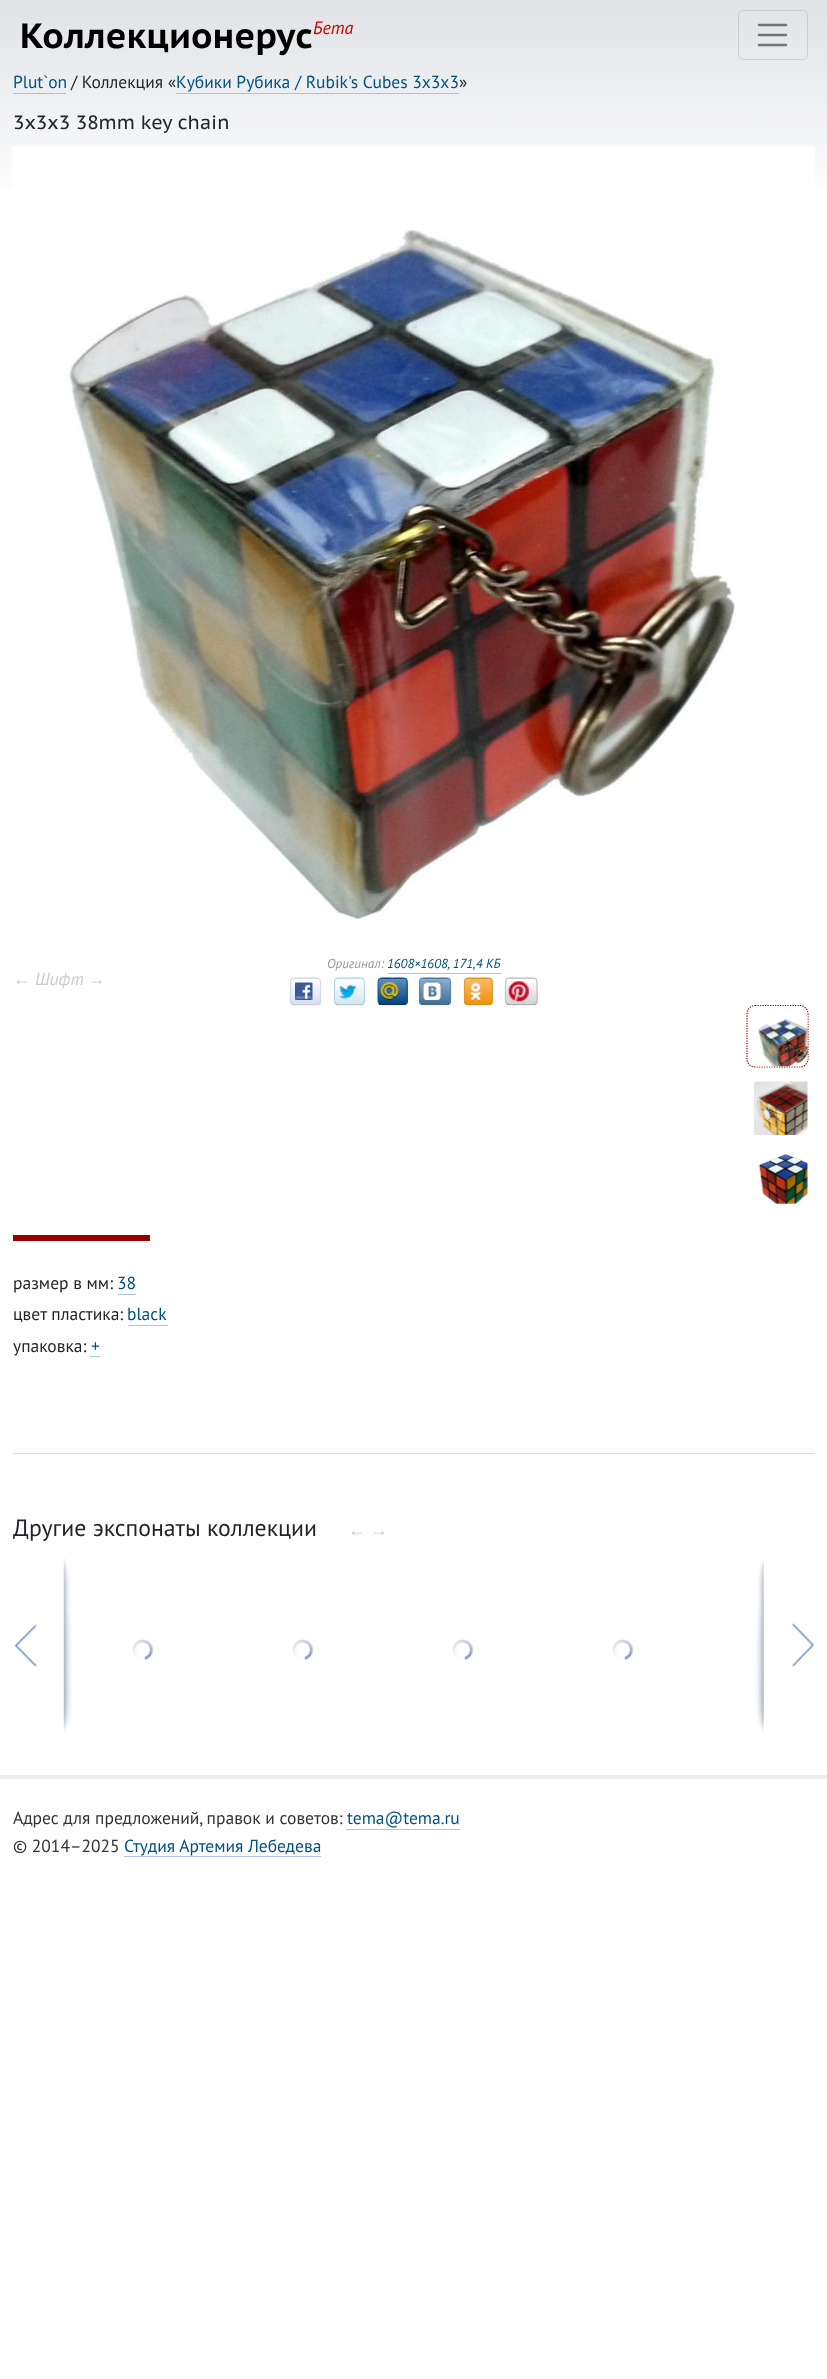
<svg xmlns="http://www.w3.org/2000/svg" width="827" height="2379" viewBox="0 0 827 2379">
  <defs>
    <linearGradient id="g1" gradientUnits="userSpaceOnUse" x1="414" y1="0" x2="414" y2="206"><stop offset="0" stop-color="rgb(224,226,230)"/><stop offset="1" stop-color="rgb(255,255,255)"/></linearGradient>
    <clipPath id="clip1"><rect x="290" y="978" width="31" height="27" rx="4"/></clipPath>
    <linearGradient id="g2" gradientUnits="userSpaceOnUse" x1="306" y1="954" x2="306" y2="979"><stop offset="0" stop-color="rgb(255,255,255)"/><stop offset="1" stop-color="rgb(216,222,244)"/></linearGradient>
    <linearGradient id="g3" gradientUnits="userSpaceOnUse" x1="306" y1="979" x2="306" y2="1004"><stop offset="0" stop-color="rgb(255,255,255)"/><stop offset="1" stop-color="rgb(216,222,244)"/></linearGradient>
    <linearGradient id="g4" gradientUnits="userSpaceOnUse" x1="306" y1="1004" x2="306" y2="1029"><stop offset="0" stop-color="rgb(255,255,255)"/><stop offset="1" stop-color="rgb(216,222,244)"/></linearGradient>
    <clipPath id="clip2"><rect x="334" y="978" width="31" height="27" rx="4"/></clipPath>
    <linearGradient id="g5" gradientUnits="userSpaceOnUse" x1="349" y1="954" x2="349" y2="979"><stop offset="0" stop-color="rgb(255,255,255)"/><stop offset="1" stop-color="rgb(213,230,239)"/></linearGradient>
    <linearGradient id="g6" gradientUnits="userSpaceOnUse" x1="349" y1="979" x2="349" y2="1004"><stop offset="0" stop-color="rgb(255,255,255)"/><stop offset="1" stop-color="rgb(213,230,239)"/></linearGradient>
    <linearGradient id="g7" gradientUnits="userSpaceOnUse" x1="349" y1="1004" x2="349" y2="1029"><stop offset="0" stop-color="rgb(255,255,255)"/><stop offset="1" stop-color="rgb(213,230,239)"/></linearGradient>
    <clipPath id="clip3"><rect x="378" y="978" width="30" height="27" rx="4"/></clipPath>
    <linearGradient id="g8" gradientUnits="userSpaceOnUse" x1="393" y1="954" x2="393" y2="979"><stop offset="0" stop-color="rgb(93,144,186)"/><stop offset="1" stop-color="rgb(0,69,132)"/></linearGradient>
    <linearGradient id="g9" gradientUnits="userSpaceOnUse" x1="393" y1="979" x2="393" y2="1004"><stop offset="0" stop-color="rgb(93,144,186)"/><stop offset="1" stop-color="rgb(0,69,132)"/></linearGradient>
    <linearGradient id="g10" gradientUnits="userSpaceOnUse" x1="393" y1="1004" x2="393" y2="1029"><stop offset="0" stop-color="rgb(93,144,186)"/><stop offset="1" stop-color="rgb(0,69,132)"/></linearGradient>
    <clipPath id="clip4"><rect x="419" y="978" width="32" height="27" rx="4"/></clipPath>
    <linearGradient id="g11" gradientUnits="userSpaceOnUse" x1="435" y1="954" x2="435" y2="979"><stop offset="0" stop-color="rgb(143,174,207)"/><stop offset="1" stop-color="rgb(67,111,150)"/></linearGradient>
    <linearGradient id="g12" gradientUnits="userSpaceOnUse" x1="435" y1="979" x2="435" y2="1004"><stop offset="0" stop-color="rgb(143,174,207)"/><stop offset="1" stop-color="rgb(67,111,150)"/></linearGradient>
    <linearGradient id="g13" gradientUnits="userSpaceOnUse" x1="435" y1="1004" x2="435" y2="1029"><stop offset="0" stop-color="rgb(143,174,207)"/><stop offset="1" stop-color="rgb(67,111,150)"/></linearGradient>
    <clipPath id="clip5"><rect x="464" y="978" width="29" height="27" rx="4"/></clipPath>
    <linearGradient id="g14" gradientUnits="userSpaceOnUse" x1="478" y1="954" x2="478" y2="979"><stop offset="0" stop-color="rgb(246,187,109)"/><stop offset="1" stop-color="rgb(246,144,11)"/></linearGradient>
    <linearGradient id="g15" gradientUnits="userSpaceOnUse" x1="478" y1="979" x2="478" y2="1004"><stop offset="0" stop-color="rgb(246,187,109)"/><stop offset="1" stop-color="rgb(246,144,11)"/></linearGradient>
    <linearGradient id="g16" gradientUnits="userSpaceOnUse" x1="478" y1="1004" x2="478" y2="1029"><stop offset="0" stop-color="rgb(246,187,109)"/><stop offset="1" stop-color="rgb(246,144,11)"/></linearGradient>
    <clipPath id="clip6"><rect x="505" y="978" width="33" height="27" rx="4"/></clipPath>
    <linearGradient id="g17" gradientUnits="userSpaceOnUse" x1="521" y1="954" x2="521" y2="979"><stop offset="0" stop-color="rgb(254,254,254)"/><stop offset="1" stop-color="rgb(211,211,211)"/></linearGradient>
    <linearGradient id="g18" gradientUnits="userSpaceOnUse" x1="521" y1="979" x2="521" y2="1004"><stop offset="0" stop-color="rgb(254,254,254)"/><stop offset="1" stop-color="rgb(211,211,211)"/></linearGradient>
    <linearGradient id="g19" gradientUnits="userSpaceOnUse" x1="521" y1="1004" x2="521" y2="1029"><stop offset="0" stop-color="rgb(254,254,254)"/><stop offset="1" stop-color="rgb(211,211,211)"/></linearGradient>
  </defs>
  <rect width="100%" height="100%" fill="rgb(255,255,255)"/>
  <rect x="0" y="0" width="827" height="189" fill="url(#g1)"/>
  <text x="20" y="48" font-family="PT Sans Caption" font-size="35" font-weight="bold" fill="rgb(0,0,0)">Коллекционерус</text>
  <text x="313" y="34" font-family="PT Sans" font-size="18" font-style="italic" fill="rgb(204,0,0)">Бета</text>
  <rect x="738.5" y="10.5" width="69" height="49" rx="4.5" fill="none" stroke="rgba(0,0,0,0.1)"/>
  <path d="M759 25H786M759 35H786M759 45H786" fill="none" stroke="rgba(0,0,0,0.5)" stroke-width="2.5" stroke-linecap="round"/>
  <text x="13" y="88" font-family="PT Sans" font-size="17.5" fill="rgb(0,80,128)">Plut`on</text>
  <rect x="13" y="93" width="53" height="1" fill="rgb(176,192,240)"/>
  <text x="71" y="88" font-family="PT Sans" font-size="17.5" fill="rgb(33,37,41)">/ Коллекция «</text>
  <text x="176" y="88" font-family="PT Sans" font-size="17.5" fill="rgb(0,80,128)">Кубики Рубика / Rubik's Cubes 3x3x3</text>
  <rect x="176" y="93" width="283" height="1" fill="rgb(176,192,240)"/>
  <text x="459" y="88" font-family="PT Sans" font-size="17.5" fill="rgb(33,37,41)">»</text>
  <text x="13" y="129" font-family="PT Sans Caption" font-size="19.25" fill="rgb(33,37,41)">3x3x3 38mm key chain</text>
  <image x="12" y="146" width="803" height="776" href="pic1.png"/>
  <text x="327" y="968" font-family="PT Sans" font-size="13.1" font-style="italic" fill="rgb(153,153,153)">Оригинал:</text>
  <text x="387" y="968" font-family="PT Sans" font-size="13.1" font-style="italic" fill="rgb(0,80,128)">1608×1608, 171,4 КБ</text>
  <rect x="388" y="973" width="113" height="1" fill="rgb(176,192,240)"/>
  <rect x="290" y="979" width="31" height="27" rx="4" fill="rgba(0,0,0,0.05)" filter="blur(0.5px)"/>
  <g clip-path="url(#clip1)">
    <rect x="290" y="978" width="31" height="1" fill="url(#g2)"/>
    <rect x="290" y="979" width="31" height="25" fill="url(#g3)"/>
    <rect x="290" y="1004" width="31" height="1" fill="url(#g4)"/>
  </g>
  <path d="M319.5 1003.5C319 1004 318.5 1004.5 317.5 1004.5H294C293 1004.5 292 1004 291.5 1003.5" fill="none" stroke="rgba(189,194,203,0.8)" stroke-width="1.2"/>
  <path d="M291.5 1003.5C290 1002 290.5 999.5 290.5 998V991C290.5 975.5 289 978 305.5 978C322.5 978 320.5 975.5 320.5 991V998C320.5 999.5 321 1002 319.5 1003.5" fill="none" stroke="rgba(202,212,231,0.8)" stroke-width="1.2"/>
  <image x="295" y="982" width="18" height="18" href="pic2.png"/>
  <rect x="334" y="979" width="31" height="27" rx="4" fill="rgba(0,0,0,0.05)" filter="blur(0.5px)"/>
  <g clip-path="url(#clip2)">
    <rect x="334" y="978" width="31" height="1" fill="url(#g5)"/>
    <rect x="334" y="979" width="31" height="25" fill="url(#g6)"/>
    <rect x="334" y="1004" width="31" height="1" fill="url(#g7)"/>
  </g>
  <path d="M363.5 1003.5C363 1004 362 1004.5 361 1004.5H337.5C336.5 1004.5 336 1004 335.5 1003.5" fill="none" stroke="rgba(158,186,204,0.8)" stroke-width="1.2"/>
  <path d="M335.5 1003.5C334 1002 334.5 999.5 334.5 998V991C334.5 975.5 332.5 978 349.5 978C366 978 364.5 975.5 364.5 991V998C364.5 999.5 365 1002 363.5 1003.5" fill="none" stroke="rgba(164,204,229,0.8)" stroke-width="1.2"/>
  <image x="339" y="985" width="18" height="14" href="pic3.png"/>
  <rect x="378" y="979" width="30" height="27" rx="4" fill="rgba(0,0,0,0.05)" filter="blur(0.5px)"/>
  <g clip-path="url(#clip3)">
    <rect x="378" y="978" width="30" height="1" fill="url(#g8)"/>
    <rect x="378" y="979" width="30" height="25" fill="url(#g9)"/>
    <rect x="378" y="1004" width="30" height="1" fill="url(#g10)"/>
  </g>
  <path d="M406 1003.5C405.5 1004 404.5 1004.5 404 1004.5H381C380.5 1004.5 379.5 1004 379 1003.5" fill="none" stroke="rgba(3,27,48,0.8)" stroke-width="1.2"/>
  <path d="M379 1003.5C377.5 1002 378 999.5 378 998V991C378 975.5 376.5 978 392.5 978C408.5 978 407 975.5 407 991V998C407 999.5 407.5 1002 406 1003.5" fill="none" stroke="rgba(11,84,153,0.8)" stroke-width="1.2"/>
  <image x="380" y="981" width="19" height="19" href="pic4.png"/>
  <rect x="419" y="979" width="32" height="27" rx="4" fill="rgba(0,0,0,0.05)" filter="blur(0.5px)"/>
  <g clip-path="url(#clip4)">
    <rect x="419" y="978" width="32" height="1" fill="url(#g11)"/>
    <rect x="419" y="979" width="32" height="25" fill="url(#g12)"/>
    <rect x="419" y="1004" width="32" height="1" fill="url(#g13)"/>
  </g>
  <path d="M449.5 1003.5C449 1004 448.5 1004.5 447.5 1004.5H422.5C421.5 1004.5 421 1004 420.5 1003.5" fill="none" stroke="rgba(52,88,127,0.8)" stroke-width="1.2"/>
  <path d="M420.5 1003.5C419 1002 419.5 999.5 419.5 998V991C419.5 975 418 978 435 978C452 978 450.5 975 450.5 991V998C450.5 999.5 451 1002 449.5 1003.5" fill="none" stroke="rgba(78,131,193,0.8)" stroke-width="1.2"/>
  <image x="421" y="981" width="22" height="21" href="pic5.png"/>
  <rect x="464" y="979" width="29" height="27" rx="4" fill="rgba(0,0,0,0.05)" filter="blur(0.5px)"/>
  <g clip-path="url(#clip5)">
    <rect x="464" y="978" width="29" height="1" fill="url(#g14)"/>
    <rect x="464" y="979" width="29" height="25" fill="url(#g15)"/>
    <rect x="464" y="1004" width="29" height="1" fill="url(#g16)"/>
  </g>
  <path d="M491 1003.5C490.5 1004 489.5 1004.5 489 1004.5H467.5C466.5 1004.5 466 1004 465.5 1003.5" fill="none" stroke="rgba(197,137,7,0.8)" stroke-width="1.2"/>
  <path d="M465.5 1003.5C464 1002 464.5 999.5 464.5 998V991C464.5 976 462.5 978 478 978C494 978 492 976 492 991V998C492 999.5 492.5 1002 491 1003.5" fill="none" stroke="rgba(217,154,38,0.8)" stroke-width="1.2"/>
  <image x="470" y="982" width="12" height="20" href="pic6.png"/>
  <rect x="505" y="979" width="33" height="27" rx="4" fill="rgba(0,0,0,0.05)" filter="blur(0.5px)"/>
  <g clip-path="url(#clip6)">
    <rect x="505" y="978" width="33" height="1" fill="url(#g17)"/>
    <rect x="505" y="979" width="33" height="25" fill="url(#g18)"/>
    <rect x="505" y="1004" width="33" height="1" fill="url(#g19)"/>
  </g>
  <path d="M536 1003.5C535.5 1004 534.5 1004.5 534 1004.5H509C508 1004.5 507 1004 506.5 1003.5" fill="none" stroke="rgba(153,153,153,0.8)" stroke-width="1.2"/>
  <path d="M506.5 1003.5C505 1002 505.5 999.5 505.5 998V991C505.5 975 504 978 521 978C538.5 978 537 975 537 991V998C537 999.5 537.5 1002 536 1003.5" fill="none" stroke="rgba(186,186,186,0.8)" stroke-width="1.2"/>
  <image x="508" y="981" width="21" height="21" href="pic7.png"/>
  <text x="13" y="985" font-family="Liberation Sans" font-size="17.5" font-style="italic" fill="rgb(204,204,204)">←</text>
  <text x="35" y="985" font-family="PT Sans" font-size="17.5" font-style="italic" fill="rgb(204,204,204)">Шифт</text>
  <text x="88" y="985" font-family="Liberation Sans" font-size="17.5" font-style="italic" fill="rgb(204,204,204)">→</text>
  <path d="M755 1005.5H800C804.5 1005.5 808 1009.5 808 1014V1059C808 1063 804.5 1067 800 1067H755C750.5 1067 747 1063 747 1059V1014C747 1009.5 750.5 1005.5 755 1005.5Z" fill="none" stroke="rgb(153,0,0)" stroke-width="1.2" stroke-dasharray="1.25 1.25"/>
  <image x="754" y="1012" width="54" height="55" href="pic8.png"/>
  <image x="754" y="1081" width="54" height="54" href="pic9.png"/>
  <image x="758" y="1154" width="50" height="50" href="pic10.png"/>
  <rect x="13" y="1235" width="137" height="6" fill="rgb(153,0,0)"/>
  <text x="13" y="1289" font-family="PT Sans" font-size="17.5" fill="rgb(33,37,41)">размер в мм:</text>
  <text x="117" y="1289" font-family="PT Sans" font-size="17.5" fill="rgb(0,80,128)">38</text>
  <rect x="118" y="1294" width="18" height="1" fill="rgb(176,192,240)"/>
  <text x="13" y="1320" font-family="PT Sans" font-size="17.5" fill="rgb(33,37,41)">цвет пластика:</text>
  <text x="127" y="1320" font-family="PT Sans" font-size="17.5" fill="rgb(0,80,128)">black</text>
  <rect x="128" y="1325" width="40" height="1" fill="rgb(176,192,240)"/>
  <text x="13" y="1352" font-family="PT Sans" font-size="17.5" fill="rgb(33,37,41)">упаковка:</text>
  <text x="91" y="1352" font-family="PT Sans" font-size="17.5" fill="rgb(0,80,128)">+</text>
  <rect x="90" y="1356" width="10" height="1" fill="rgb(176,192,240)"/>
  <rect x="13" y="1453" width="802" height="1" fill="rgb(221,221,221)"/>
  <text x="13" y="1536" font-family="PT Sans" font-size="23.75" fill="rgb(33,37,41)">Другие экспонаты коллекции</text>
  <text x="348" y="1536" font-family="Liberation Sans" font-size="17.5" font-style="italic" fill="rgb(204,204,204)">← →</text>
  <image x="14" y="1558" width="58" height="175" href="pic11.png"/>
  <image x="132" y="1639" width="22" height="22" href="pic12.png"/>
  <image x="292" y="1639" width="22" height="22" href="pic12.png"/>
  <image x="452" y="1639" width="22" height="22" href="pic12.png"/>
  <image x="612" y="1639" width="22" height="22" href="pic12.png"/>
  <image x="755" y="1558" width="59" height="175" href="pic13.png"/>
  <rect x="0" y="1775" width="827" height="4" fill="rgb(238,238,238)"/>
  <text x="13" y="1824" font-family="PT Sans" font-size="17.5" fill="rgb(51,51,51)">Адрес для предложений, правок и советов:</text>
  <text x="347" y="1824" font-family="PT Sans" font-size="17.5" fill="rgb(0,80,128)">tema@tema.ru</text>
  <rect x="346" y="1829" width="114" height="1" fill="rgb(176,192,240)"/>
  <text x="13" y="1852" font-family="PT Sans" font-size="17.5" fill="rgb(51,51,51)">© 2014–2025</text>
  <text x="124" y="1852" font-family="PT Sans" font-size="17.5" fill="rgb(0,80,128)">Студия Артемия Лебедева</text>
  <rect x="124" y="1856" width="197" height="1" fill="rgb(176,192,240)"/>
</svg>
